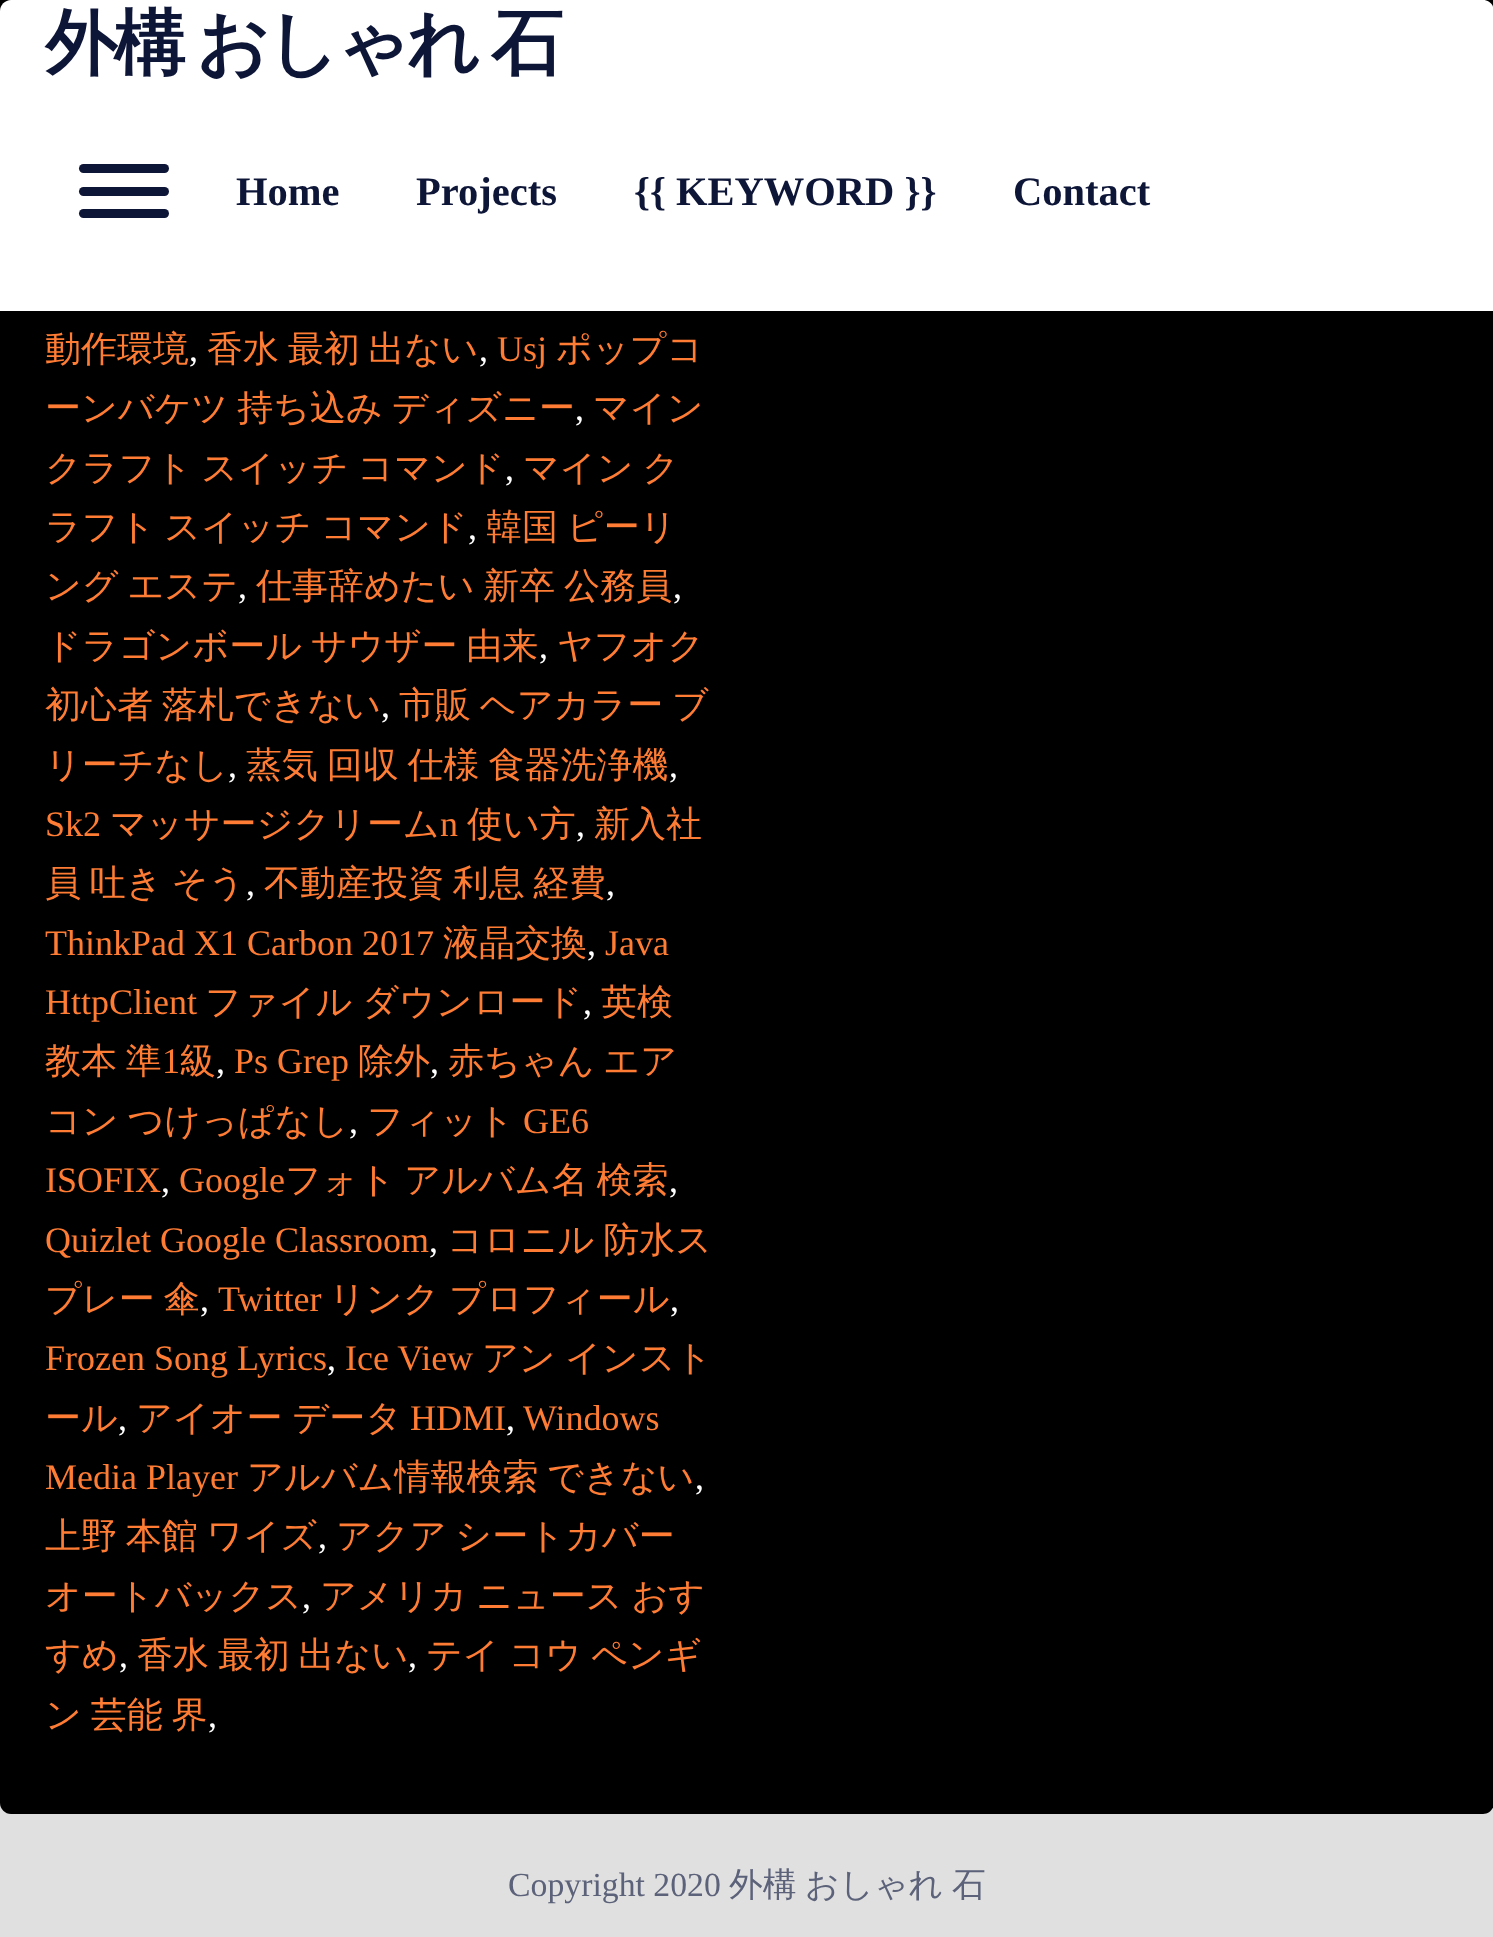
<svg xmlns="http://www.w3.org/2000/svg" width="1493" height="1937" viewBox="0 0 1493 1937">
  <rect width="100%" height="100%" fill="rgb(224,224,224)"/>
  <path d="M0-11H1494V1803C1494 1809 1489 1814 1483 1814H11C5 1814 0 1809 0 1803Z" fill="rgb(0,0,0)"/>
  <path d="M11 0H1483C1489 0 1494 5 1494 11V311H0V11C0 5 5 0 11 0Z" fill="rgb(255,255,255)"/>
  <text x="45" y="68" word-spacing="-4" font-family="WenQuanYi Zen Hei" font-size="72" font-weight="bold" letter-spacing="-3.5" fill="rgb(14,22,56)">外構 おしゃれ 石</text>
  <rect x="79" y="164" width="90" height="9" rx="4.5" fill="rgb(14,22,56)"/>
  <rect x="79" y="187" width="90" height="9" rx="4.5" fill="rgb(14,22,56)"/>
  <rect x="79" y="209" width="90" height="9" rx="4.5" fill="rgb(14,22,56)"/>
  <g font-family="Liberation Serif" font-size="40.5" font-weight="bold" fill="rgb(14,22,56)">
    <text x="236" y="205">Home</text>
    <text x="416" y="205">Projects</text>
    <text x="634" y="205">{{ KEYWORD }}</text>
    <text x="1013" y="205">Contact</text>
  </g>
  <text x="45" y="361" font-family="WenQuanYi Zen Hei" font-size="36" font-weight="500" fill="rgb(255,124,52)">動作環境</text>
  <text x="189" y="361" font-family="Liberation Serif" font-size="36" fill="rgb(255,255,255)">,</text>
  <text x="207" y="361" word-spacing="-2" font-family="WenQuanYi Zen Hei" font-size="36" font-weight="500" fill="rgb(255,124,52)">香水 最初 出ない</text>
  <text x="479" y="361" font-family="Liberation Serif" font-size="36" fill="rgb(255,255,255)">,</text>
  <text x="497" y="361" font-family="Liberation Serif" font-size="36" fill="rgb(255,124,52)">Usj</text>
  <g font-family="WenQuanYi Zen Hei" font-size="36" font-weight="500" fill="rgb(255,124,52)">
    <text x="556" y="361">ポップコ</text>
    <text x="45" y="420" word-spacing="-2">ーンバケツ 持ち込み ディズニー</text>
  </g>
  <text x="575" y="420" font-family="Liberation Serif" font-size="36" fill="rgb(255,255,255)">,</text>
  <g font-family="WenQuanYi Zen Hei" font-size="36" font-weight="500" fill="rgb(255,124,52)">
    <text x="593" y="420">マイン</text>
    <text x="45" y="480" word-spacing="-2">クラフト スイッチ コマンド</text>
  </g>
  <text x="505" y="480" font-family="Liberation Serif" font-size="36" fill="rgb(255,255,255)">,</text>
  <g font-family="WenQuanYi Zen Hei" font-size="36" font-weight="500" fill="rgb(255,124,52)">
    <text x="523" y="480" word-spacing="-2">マイン ク</text>
    <text x="45" y="539" word-spacing="-2">ラフト スイッチ コマンド</text>
  </g>
  <text x="468" y="539" font-family="Liberation Serif" font-size="36" fill="rgb(255,255,255)">,</text>
  <g font-family="WenQuanYi Zen Hei" font-size="36" font-weight="500" fill="rgb(255,124,52)">
    <text x="486" y="539" word-spacing="-2">韓国 ピーリ</text>
    <text x="45" y="598" word-spacing="-2">ング エステ</text>
  </g>
  <text x="238" y="598" font-family="Liberation Serif" font-size="36" fill="rgb(255,255,255)">,</text>
  <text x="256" y="598" word-spacing="-2" font-family="WenQuanYi Zen Hei" font-size="36" font-weight="500" fill="rgb(255,124,52)">仕事辞めたい 新卒 公務員</text>
  <text x="673" y="598" font-family="Liberation Serif" font-size="36" fill="rgb(255,255,255)">,</text>
  <text x="45" y="658" word-spacing="-2" font-family="WenQuanYi Zen Hei" font-size="36" font-weight="500" fill="rgb(255,124,52)">ドラゴンボール サウザー 由来</text>
  <text x="539" y="658" font-family="Liberation Serif" font-size="36" fill="rgb(255,255,255)">,</text>
  <g font-family="WenQuanYi Zen Hei" font-size="36" font-weight="500" fill="rgb(255,124,52)">
    <text x="557" y="658">ヤフオク</text>
    <text x="45" y="717" word-spacing="-2">初心者 落札できない</text>
  </g>
  <text x="381" y="717" font-family="Liberation Serif" font-size="36" fill="rgb(255,255,255)">,</text>
  <g font-family="WenQuanYi Zen Hei" font-size="36" font-weight="500" fill="rgb(255,124,52)">
    <text x="399" y="717" word-spacing="-2">市販 ヘアカラー ブ</text>
    <text x="45" y="777">リーチなし</text>
  </g>
  <text x="228" y="777" font-family="Liberation Serif" font-size="36" fill="rgb(255,255,255)">,</text>
  <text x="246" y="777" word-spacing="-2" font-family="WenQuanYi Zen Hei" font-size="36" font-weight="500" fill="rgb(255,124,52)">蒸気 回収 仕様 食器洗浄機</text>
  <text x="669" y="777" font-family="Liberation Serif" font-size="36" fill="rgb(255,255,255)">,</text>
  <text x="45" y="836" font-family="Liberation Serif" font-size="36" fill="rgb(255,124,52)">Sk2</text>
  <text x="110" y="836" font-family="WenQuanYi Zen Hei" font-size="36" font-weight="500" fill="rgb(255,124,52)">マッサージクリーム</text>
  <text x="440" y="836" font-family="Liberation Serif" font-size="36" fill="rgb(255,124,52)">n</text>
  <g font-family="WenQuanYi Zen Hei" font-size="36" font-weight="500" fill="rgb(255,124,52)">
    <text x="467" y="836">使い方</text>
    <text x="594" y="836">新入社</text>
  </g>
  <text x="576" y="836" font-family="Liberation Serif" font-size="36" fill="rgb(255,255,255)">,</text>
  <text x="45" y="895" word-spacing="-2" font-family="WenQuanYi Zen Hei" font-size="36" font-weight="500" fill="rgb(255,124,52)">員 吐き そう</text>
  <text x="246" y="895" font-family="Liberation Serif" font-size="36" fill="rgb(255,255,255)">,</text>
  <text x="264" y="895" word-spacing="-2" font-family="WenQuanYi Zen Hei" font-size="36" font-weight="500" fill="rgb(255,124,52)">不動産投資 利息 経費</text>
  <text x="606" y="895" font-family="Liberation Serif" font-size="36" fill="rgb(255,255,255)">,</text>
  <text x="45" y="955" font-family="Liberation Serif" font-size="36" fill="rgb(255,124,52)">ThinkPad X1 Carbon 2017</text>
  <text x="443" y="955" font-family="WenQuanYi Zen Hei" font-size="36" font-weight="500" fill="rgb(255,124,52)">液晶交換</text>
  <text x="587" y="955" font-family="Liberation Serif" font-size="36" fill="rgb(255,255,255)">,</text>
  <g font-family="Liberation Serif" font-size="36" fill="rgb(255,124,52)">
    <text x="605" y="955">Java</text>
    <text x="45" y="1014">HttpClient</text>
  </g>
  <text x="205" y="1014" word-spacing="-1" font-family="WenQuanYi Zen Hei" font-size="36" font-weight="500" fill="rgb(255,124,52)">ファイル ダウンロード</text>
  <text x="583" y="1014" font-family="Liberation Serif" font-size="36" fill="rgb(255,255,255)">,</text>
  <g font-family="WenQuanYi Zen Hei" font-size="36" font-weight="500" fill="rgb(255,124,52)">
    <text x="601" y="1014">英検</text>
    <text x="45" y="1073" word-spacing="-2">教本 準</text>
  </g>
  <text x="162" y="1073" font-family="Liberation Serif" font-size="36" fill="rgb(255,124,52)">1</text>
  <text x="180" y="1073" font-family="WenQuanYi Zen Hei" font-size="36" font-weight="500" fill="rgb(255,124,52)">級</text>
  <text x="216" y="1073" font-family="Liberation Serif" font-size="36" fill="rgb(255,255,255)">,</text>
  <text x="234" y="1073" font-family="Liberation Serif" font-size="36" fill="rgb(255,124,52)">Ps Grep</text>
  <text x="358" y="1073" font-family="WenQuanYi Zen Hei" font-size="36" font-weight="500" fill="rgb(255,124,52)">除外</text>
  <text x="430" y="1073" font-family="Liberation Serif" font-size="36" fill="rgb(255,255,255)">,</text>
  <g font-family="WenQuanYi Zen Hei" font-size="36" font-weight="500" fill="rgb(255,124,52)">
    <text x="448" y="1073" word-spacing="-2">赤ちゃん エア</text>
    <text x="45" y="1133" word-spacing="-2">コン つけっぱなし</text>
  </g>
  <text x="349" y="1133" font-family="Liberation Serif" font-size="36" fill="rgb(255,255,255)">,</text>
  <text x="367" y="1133" font-family="WenQuanYi Zen Hei" font-size="36" font-weight="500" fill="rgb(255,124,52)">フィット</text>
  <g font-family="Liberation Serif" font-size="36" fill="rgb(255,124,52)">
    <text x="523" y="1133">GE6</text>
    <text x="45" y="1192">ISOFIX</text>
  </g>
  <text x="161" y="1192" font-family="Liberation Serif" font-size="36" fill="rgb(255,255,255)">,</text>
  <text x="179" y="1192" font-family="Liberation Serif" font-size="36" fill="rgb(255,124,52)">Google</text>
  <text x="285" y="1192" word-spacing="-2" font-family="WenQuanYi Zen Hei" font-size="36" font-weight="500" fill="rgb(255,124,52)">フォト アルバム名 検索</text>
  <text x="669" y="1192" font-family="Liberation Serif" font-size="36" fill="rgb(255,255,255)">,</text>
  <text x="45" y="1252" font-family="Liberation Serif" font-size="36" fill="rgb(255,124,52)">Quizlet Google Classroom</text>
  <text x="429" y="1252" font-family="Liberation Serif" font-size="36" fill="rgb(255,255,255)">,</text>
  <g font-family="WenQuanYi Zen Hei" font-size="36" font-weight="500" fill="rgb(255,124,52)">
    <text x="447" y="1252" word-spacing="-2">コロニル 防水ス</text>
    <text x="45" y="1311" word-spacing="-2">プレー 傘</text>
  </g>
  <text x="200" y="1311" font-family="Liberation Serif" font-size="36" fill="rgb(255,255,255)">,</text>
  <text x="218" y="1311" font-family="Liberation Serif" font-size="36" fill="rgb(255,124,52)">Twitter</text>
  <text x="329" y="1311" word-spacing="-1" font-family="WenQuanYi Zen Hei" font-size="36" font-weight="500" fill="rgb(255,124,52)">リンク プロフィール</text>
  <text x="670" y="1311" font-family="Liberation Serif" font-size="36" fill="rgb(255,255,255)">,</text>
  <text x="45" y="1370" font-family="Liberation Serif" font-size="36" fill="rgb(255,124,52)">Frozen Song Lyrics</text>
  <text x="327" y="1370" font-family="Liberation Serif" font-size="36" fill="rgb(255,255,255)">,</text>
  <text x="345" y="1370" font-family="Liberation Serif" font-size="36" fill="rgb(255,124,52)">Ice View</text>
  <g font-family="WenQuanYi Zen Hei" font-size="36" font-weight="500" fill="rgb(255,124,52)">
    <text x="482" y="1370">アン</text>
    <text x="565" y="1370">インスト</text>
    <text x="45" y="1430">ール</text>
  </g>
  <text x="118" y="1430" font-family="Liberation Serif" font-size="36" fill="rgb(255,255,255)">,</text>
  <text x="136" y="1430" word-spacing="-1" font-family="WenQuanYi Zen Hei" font-size="36" font-weight="500" fill="rgb(255,124,52)">アイオー データ</text>
  <text x="410" y="1430" font-family="Liberation Serif" font-size="36" fill="rgb(255,124,52)">HDMI</text>
  <text x="506" y="1430" font-family="Liberation Serif" font-size="36" fill="rgb(255,255,255)">,</text>
  <g font-family="Liberation Serif" font-size="36" fill="rgb(255,124,52)">
    <text x="523" y="1430">Windows</text>
    <text x="45" y="1489">Media Player</text>
  </g>
  <g font-family="WenQuanYi Zen Hei" font-size="36" font-weight="500" fill="rgb(255,124,52)">
    <text x="247" y="1489">アルバム情報検索</text>
    <text x="547" y="1489">できない</text>
  </g>
  <text x="695" y="1489" font-family="Liberation Serif" font-size="36" fill="rgb(255,255,255)">,</text>
  <text x="45" y="1548" word-spacing="-2" font-family="WenQuanYi Zen Hei" font-size="36" font-weight="500" fill="rgb(255,124,52)">上野 本館 ワイズ</text>
  <text x="318" y="1548" font-family="Liberation Serif" font-size="36" fill="rgb(255,255,255)">,</text>
  <g font-family="WenQuanYi Zen Hei" font-size="36" font-weight="500" fill="rgb(255,124,52)">
    <text x="336" y="1548" word-spacing="-2">アクア シートカバー</text>
    <text x="45" y="1608">オートバックス</text>
  </g>
  <text x="302" y="1608" font-family="Liberation Serif" font-size="36" fill="rgb(255,255,255)">,</text>
  <g font-family="WenQuanYi Zen Hei" font-size="36" font-weight="500" fill="rgb(255,124,52)">
    <text x="320" y="1608" word-spacing="-2">アメリカ ニュース おす</text>
    <text x="45" y="1667">すめ</text>
  </g>
  <text x="119" y="1667" font-family="Liberation Serif" font-size="36" fill="rgb(255,255,255)">,</text>
  <text x="137" y="1667" word-spacing="-2" font-family="WenQuanYi Zen Hei" font-size="36" font-weight="500" fill="rgb(255,124,52)">香水 最初 出ない</text>
  <text x="408" y="1667" font-family="Liberation Serif" font-size="36" fill="rgb(255,255,255)">,</text>
  <g font-family="WenQuanYi Zen Hei" font-size="36" font-weight="500" fill="rgb(255,124,52)">
    <text x="426" y="1667" word-spacing="-2">テイ コウ ペンギ</text>
    <text x="45" y="1727" word-spacing="-2">ン 芸能 界</text>
  </g>
  <text x="208" y="1727" font-family="Liberation Serif" font-size="36" fill="rgb(255,255,255)">,</text>
  <text x="508" y="1896" font-family="Liberation Serif" font-size="33.75" fill="rgb(92,98,121)">Copyright 2020</text>
  <g font-family="WenQuanYi Zen Hei" font-size="33.75" font-weight="500" fill="rgb(92,98,121)">
    <text x="729" y="1896">外構</text>
    <text x="805" y="1896">おしゃれ</text>
    <text x="952" y="1896">石</text>
  </g>
</svg>
